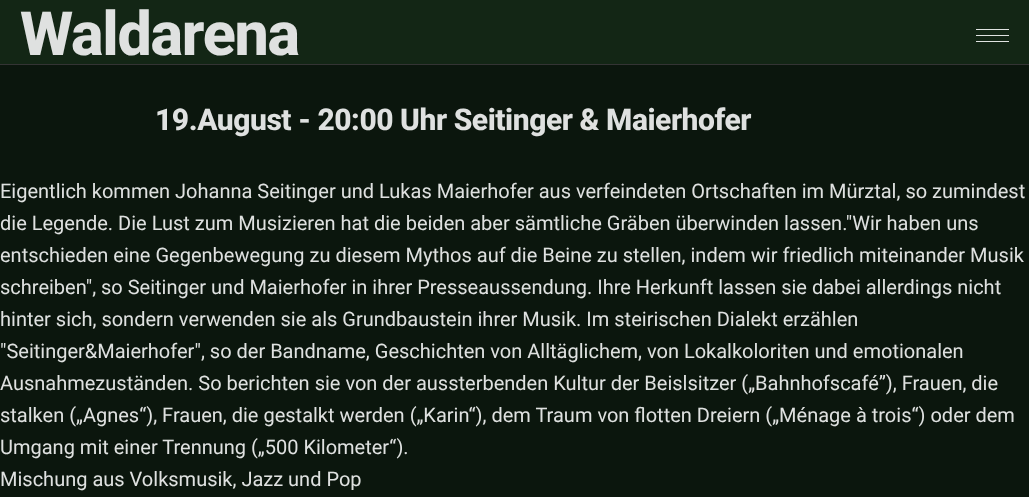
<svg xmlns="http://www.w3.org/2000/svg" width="1029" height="497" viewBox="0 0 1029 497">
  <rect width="100%" height="100%" fill="rgb(11,22,13)"/>
  <rect x="0" y="0" width="1029" height="64" fill="rgb(19,38,21)"/>
  <rect x="0" y="64" width="1029" height="1" fill="rgb(52,52,52)"/>
  <text x="20" y="55" font-family="Roboto" font-size="61" font-weight="800" letter-spacing="-1.25" fill="rgb(223,225,224)">Waldarena</text>
  <rect x="976" y="29" width="33" height="1" fill="rgb(224,227,225)"/>
  <rect x="976" y="41" width="33" height="1" fill="rgb(224,227,225)"/>
  <rect x="976" y="35" width="33" height="1" fill="rgb(224,227,225)"/>
  <text x="155" y="130" font-family="Roboto" font-size="30" font-weight="800" letter-spacing="-0.45" fill="rgb(223,225,224)">19.August - 20:00 Uhr Seitinger &amp; Maierhofer</text>
  <g font-family="Roboto" font-size="20" fill="rgb(223,225,224)">
    <text>
      <tspan x="0" y="198">Eigentlich kommen Johanna Seitinger und Lukas Maierhofer aus verfeindeten Ortschaften im Mürztal, so zumindest</tspan>
      <tspan x="0" y="230">die Legende. Die Lust zum Musizieren hat die beiden aber sämtliche Gräben überwinden lassen."Wir haben uns</tspan>
      <tspan x="0" y="262">entschieden eine Gegenbewegung zu diesem Mythos auf die Beine zu stellen, indem wir friedlich miteinander Musik</tspan>
      <tspan x="0" y="294">schreiben", so Seitinger und Maierhofer in ihrer Presseaussendung. Ihre Herkunft lassen sie dabei allerdings nicht</tspan>
      <tspan x="0" y="326">hinter sich, sondern verwenden sie als Grundbaustein ihrer Musik. Im steirischen Dialekt erzählen</tspan>
      <tspan x="0" y="358">"Seitinger&amp;Maierhofer", so der Bandname, Geschichten von Alltäglichem, von Lokalkoloriten und emotionalen</tspan>
      <tspan x="0" y="390">Ausnahmezuständen. So berichten sie von der aussterbenden Kultur der Beislsitzer („Bahnhofscafé”), Frauen, die</tspan>
      <tspan x="0" y="422">stalken („Agnes“), Frauen, die gestalkt werden („Karin“), dem Traum von flotten Dreiern („Ménage à trois“) oder dem</tspan>
      <tspan x="0" y="454">Umgang mit einer Trennung („500 Kilometer“).</tspan>
      <tspan x="0" y="486">Mischung aus Volksmusik, Jazz und Pop</tspan>
    </text>
  </g>
</svg>
